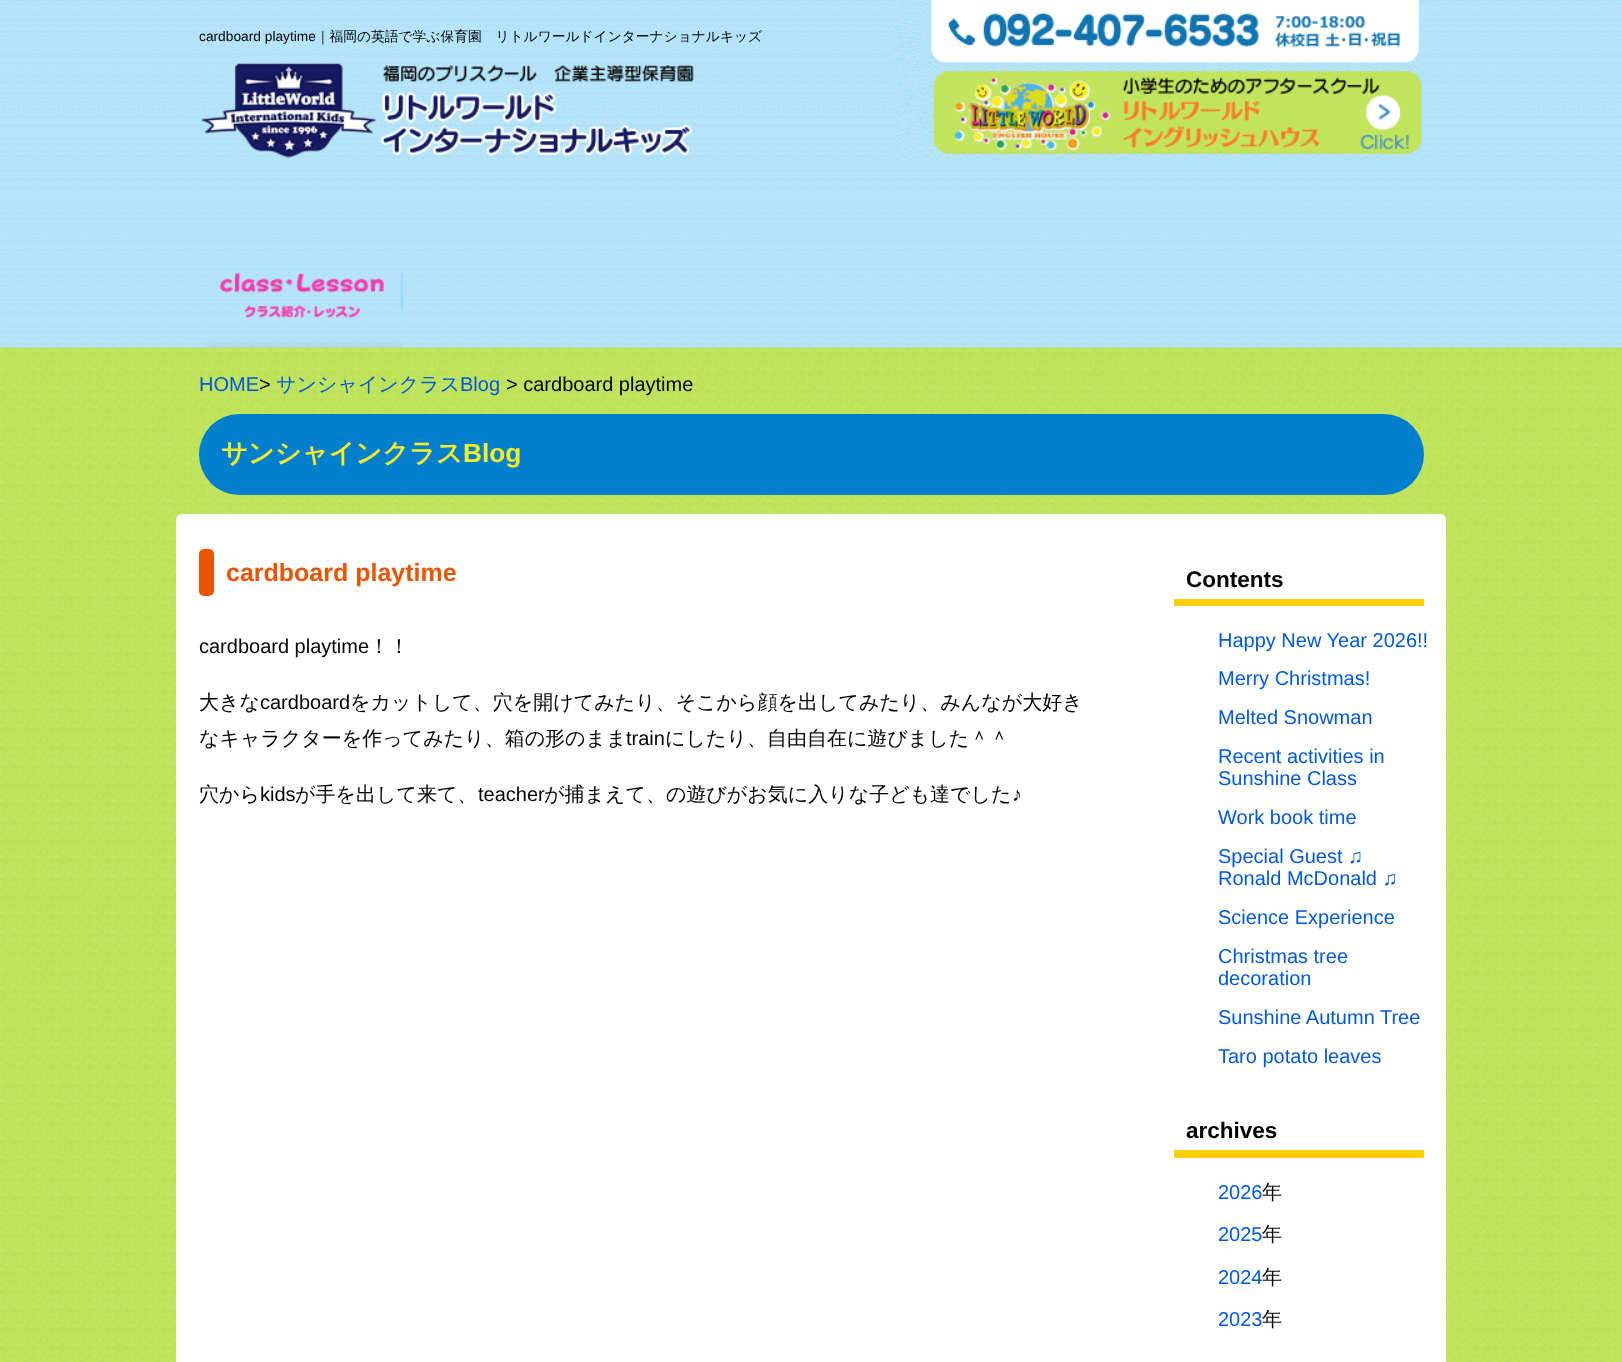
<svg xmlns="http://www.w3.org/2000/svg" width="1622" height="1362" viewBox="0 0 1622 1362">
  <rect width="100%" height="100%" fill="rgb(255,255,255)"/>
  <image x="0" y="347" width="1622" height="1015" href="pic1.png"/>
  <image x="0" y="0" width="1622" height="348" href="pic2.png"/>
  <text x="199" y="41" font-family="Liberation Sans" font-size="13.75" fill="rgb(0,0,0)">cardboard playtime</text>
  <text x="316" y="41" font-family="WenQuanYi Zen Hei" font-size="13.75" font-weight="500" fill="rgb(0,0,0)">｜福岡の英語で学ぶ保育園　リトルワールドインターナショナルキッズ</text>
  <image x="893" y="0" width="529" height="63" href="pic3.png"/>
  <image x="201" y="63" width="493" height="95" href="pic4.png"/>
  <image x="896" y="62" width="528" height="98" href="pic5.png"/>
  <image x="201" y="272" width="202" height="76" href="pic6.png"/>
  <text x="199" y="391" font-family="Liberation Sans" font-size="20" fill="rgb(0,89,221)">HOME</text>
  <text x="259" y="391" font-family="Liberation Sans" font-size="20" fill="rgb(0,0,0)">&gt;</text>
  <text x="276" y="391" font-family="WenQuanYi Zen Hei" font-size="20" font-weight="500" fill="rgb(0,89,221)">サンシャインクラス</text>
  <text x="460" y="391" font-family="Liberation Sans" font-size="20" fill="rgb(0,89,221)">Blog</text>
  <text x="506" y="391" font-family="Liberation Sans" font-size="20" fill="rgb(0,0,0)">&gt; cardboard playtime</text>
  <rect x="199" y="414" width="1225" height="81" rx="40.5" fill="rgb(0,128,204)"/>
  <text x="221" y="462" font-family="WenQuanYi Zen Hei" font-size="26.25" font-weight="bold" fill="rgb(249,238,38)">サンシャインクラス</text>
  <text x="463" y="462" font-family="Liberation Sans" font-size="26.25" font-weight="bold" fill="rgb(249,238,38)">Blog</text>
  <rect x="176" y="514" width="1270" height="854" rx="6" fill="rgb(255,255,255)"/>
  <rect x="199" y="549" width="15" height="47" rx="5" fill="rgb(234,83,0)"/>
  <text x="226" y="581" font-family="Liberation Sans" font-size="25" font-weight="bold" fill="rgb(234,83,0)">cardboard playtime</text>
  <text x="199" y="653" font-family="Liberation Sans" font-size="20" fill="rgb(0,0,0)">cardboard playtime</text>
  <g font-family="WenQuanYi Zen Hei" font-size="20" font-weight="500" fill="rgb(0,0,0)">
    <text x="369" y="653">！！</text>
    <text x="199" y="709">大きな</text>
  </g>
  <text x="260" y="709" font-family="Liberation Sans" font-size="20" fill="rgb(0,0,0)">cardboard</text>
  <g font-family="WenQuanYi Zen Hei" font-size="20" font-weight="500" fill="rgb(0,0,0)">
    <text x="350" y="709">をカットして、穴を開けてみたり、そこから顔を出してみたり、みんなが大好き</text>
    <text x="199" y="745">なキャラクターを作ってみたり、箱の形のまま</text>
  </g>
  <text x="626" y="745" font-family="Liberation Sans" font-size="20" fill="rgb(0,0,0)">train</text>
  <g font-family="WenQuanYi Zen Hei" font-size="20" font-weight="500" fill="rgb(0,0,0)">
    <text x="665" y="745">にしたり、自由自在に遊びました＾＾</text>
    <text x="199" y="801">穴から</text>
  </g>
  <text x="260" y="801" font-family="Liberation Sans" font-size="20" fill="rgb(0,0,0)">kids</text>
  <text x="295" y="801" font-family="WenQuanYi Zen Hei" font-size="20" font-weight="500" fill="rgb(0,0,0)">が手を出して来て、</text>
  <text x="478" y="801" font-family="Liberation Sans" font-size="20" fill="rgb(0,0,0)">teacher</text>
  <text x="544" y="801" font-family="WenQuanYi Zen Hei" font-size="20" font-weight="500" fill="rgb(0,0,0)">が捕まえて、の遊びがお気に入りな子ども達でした</text>
  <text x="1012" y="801" font-family="Liberation Sans" font-size="20" fill="rgb(0,0,0)">♪</text>
  <rect x="1174" y="599" width="250" height="7" fill="rgb(253,206,9)"/>
  <text x="1186" y="587" font-family="Liberation Sans" font-size="22.5" font-weight="bold" fill="rgb(0,0,0)">Contents</text>
  <g font-family="Liberation Sans" font-size="20" fill="rgb(0,89,221)">
    <text>
      <tspan x="1218" y="647">Happy New Year 2026!!</tspan>
      <tspan x="1218" y="685">Merry Christmas!</tspan>
      <tspan x="1218" y="724">Melted Snowman</tspan>
      <tspan x="1218" y="763">Recent activities in</tspan>
      <tspan x="1218" y="785">Sunshine Class</tspan>
      <tspan x="1218" y="824">Work book time</tspan>
      <tspan x="1218" y="863">Special Guest ♫</tspan>
      <tspan x="1218" y="885">Ronald McDonald ♫</tspan>
      <tspan x="1218" y="924">Science Experience</tspan>
      <tspan x="1218" y="963">Christmas tree</tspan>
      <tspan x="1218" y="985">decoration</tspan>
      <tspan x="1218" y="1024">Sunshine Autumn Tree</tspan>
      <tspan x="1218" y="1063">Taro potato leaves</tspan>
    </text>
  </g>
  <rect x="1174" y="1150" width="250" height="8" fill="rgb(253,206,9)"/>
  <text x="1186" y="1138" font-family="Liberation Sans" font-size="22.5" font-weight="bold" fill="rgb(0,0,0)">archives</text>
  <text x="1218" y="1199" font-family="Liberation Sans" font-size="20" fill="rgb(0,89,221)">2026</text>
  <text x="1262" y="1199" font-family="WenQuanYi Zen Hei" font-size="20" font-weight="500" fill="rgb(0,0,0)">年</text>
  <text x="1218" y="1241" font-family="Liberation Sans" font-size="20" fill="rgb(0,89,221)">2025</text>
  <text x="1262" y="1241" font-family="WenQuanYi Zen Hei" font-size="20" font-weight="500" fill="rgb(0,0,0)">年</text>
  <text x="1218" y="1284" font-family="Liberation Sans" font-size="20" fill="rgb(0,89,221)">2024</text>
  <text x="1262" y="1284" font-family="WenQuanYi Zen Hei" font-size="20" font-weight="500" fill="rgb(0,0,0)">年</text>
  <text x="1218" y="1326" font-family="Liberation Sans" font-size="20" fill="rgb(0,89,221)">2023</text>
  <text x="1262" y="1326" font-family="WenQuanYi Zen Hei" font-size="20" font-weight="500" fill="rgb(0,0,0)">年</text>
</svg>
